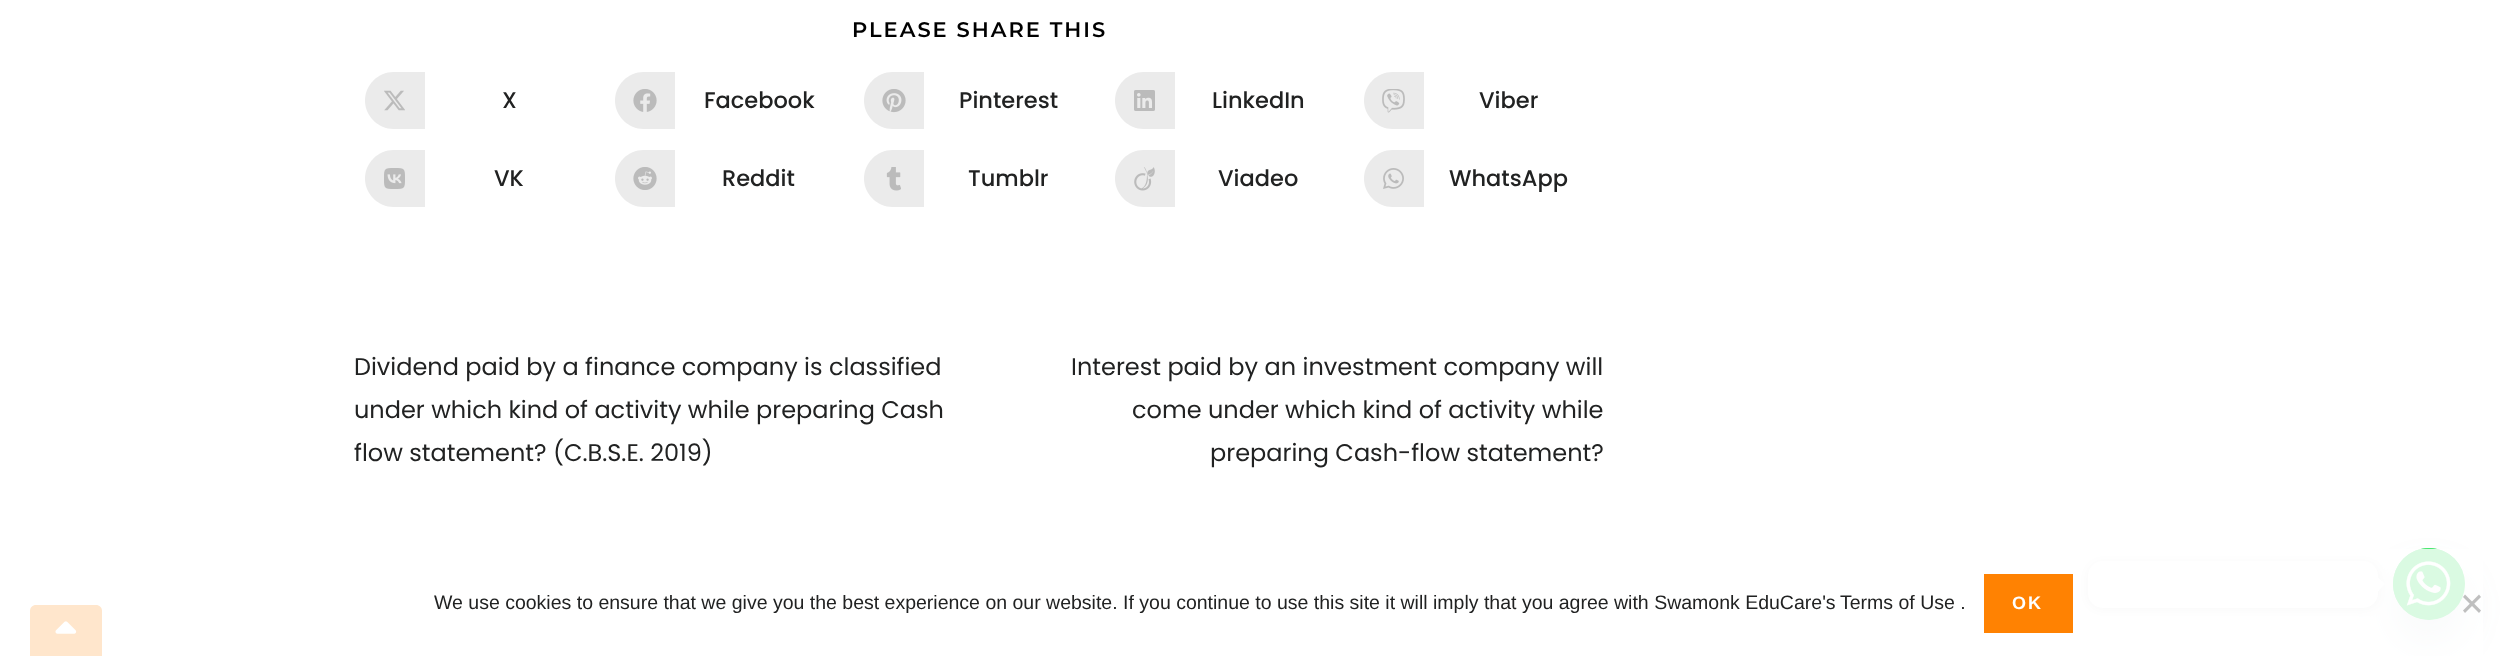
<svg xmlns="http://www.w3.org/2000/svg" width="2507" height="656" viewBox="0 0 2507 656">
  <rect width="100%" height="100%" fill="rgb(255,255,255)"/>
  <text x="852" y="37" font-family="Montserrat" font-size="21" font-weight="600" letter-spacing="2" fill="rgb(0,0,0)">PLEASE SHARE THIS</text>
  <path d="M393.5 72H425V129H393.5C378 129 365 116 365 100.5C365 85 378 72 393.5 72Z" fill="rgb(235,235,235)"/>
  <image x="384" y="90" width="21" height="21" href="pic1.png"/>
  <text x="502" y="108" font-family="Poppins" font-size="22.5" font-weight="500" fill="rgb(33,34,34)">X</text>
  <path d="M643.5 72H675V129H643.5C628 129 615 116 615 100.5C615 85 628 72 643.5 72Z" fill="rgb(235,235,235)"/>
  <image x="633" y="89" width="24" height="23" href="pic2.png"/>
  <text x="704" y="108" font-family="Poppins" font-size="22.5" font-weight="500" fill="rgb(33,34,34)">Facebook</text>
  <path d="M892.5 72H924V129H892.5C877 129 864 116 864 100.5C864 85 877 72 892.5 72Z" fill="rgb(235,235,235)"/>
  <image x="882" y="89" width="24" height="24" href="pic3.png"/>
  <text x="959" y="108" font-family="Poppins" font-size="22.5" font-weight="500" fill="rgb(33,34,34)">Pinterest</text>
  <path d="M1143.5 72H1175V129H1143.5C1128 129 1115 116 1115 100.5C1115 85 1128 72 1143.5 72Z" fill="rgb(235,235,235)"/>
  <image x="1134" y="90" width="21" height="21" href="pic4.png"/>
  <text x="1212" y="108" font-family="Poppins" font-size="22.5" font-weight="500" fill="rgb(33,34,34)">LinkedIn</text>
  <path d="M1392.5 72H1424V129H1392.5C1377 129 1364 116 1364 100.5C1364 85 1377 72 1392.5 72Z" fill="rgb(235,235,235)"/>
  <image x="1382" y="89" width="23" height="24" href="pic5.png"/>
  <text x="1479" y="108" font-family="Poppins" font-size="22.5" font-weight="500" fill="rgb(33,34,34)">Viber</text>
  <path d="M393.5 150H425V207H393.5C378 207 365 194 365 178.5C365 163 378 150 393.5 150Z" fill="rgb(235,235,235)"/>
  <image x="384" y="168" width="21" height="21" href="pic6.png"/>
  <text x="494" y="186" font-family="Poppins" font-size="22.5" font-weight="500" fill="rgb(33,34,34)">VK</text>
  <path d="M643.5 150H675V207H643.5C628 207 615 194 615 178.5C615 163 628 150 643.5 150Z" fill="rgb(235,235,235)"/>
  <image x="633" y="167" width="24" height="23" href="pic7.png"/>
  <text x="722" y="186" font-family="Poppins" font-size="22.5" font-weight="500" fill="rgb(33,34,34)">Reddit</text>
  <path d="M892.5 150H924V207H892.5C877 207 864 194 864 178.5C864 163 877 150 892.5 150Z" fill="rgb(235,235,235)"/>
  <image x="886" y="167" width="15" height="24" href="pic8.png"/>
  <text x="968" y="186" font-family="Poppins" font-size="22.5" font-weight="500" fill="rgb(33,34,34)">Tumblr</text>
  <path d="M1143.5 150H1175V207H1143.5C1128 207 1115 194 1115 178.5C1115 163 1128 150 1143.5 150Z" fill="rgb(235,235,235)"/>
  <image x="1134" y="167" width="21" height="24" href="pic9.png"/>
  <text x="1218" y="186" font-family="Poppins" font-size="22.5" font-weight="500" fill="rgb(33,34,34)">Viadeo</text>
  <path d="M1392.5 150H1424V207H1392.5C1377 207 1364 194 1364 178.5C1364 163 1377 150 1392.5 150Z" fill="rgb(235,235,235)"/>
  <image x="1383" y="168" width="21" height="21" href="pic10.png"/>
  <text x="1449" y="186" font-family="Poppins" font-size="22.5" font-weight="500" fill="rgb(33,34,34)">WhatsApp</text>
  <g font-family="Poppins" font-size="24" fill="rgb(33,34,34)">
    <text>
      <tspan x="354" y="375">Dividend paid by a finance company is classified</tspan>
      <tspan x="354" y="418">under which kind of activity while preparing Cash</tspan>
      <tspan x="354" y="461">flow statement? (C.B.S.E. 2019)</tspan>
    </text>
    <text x="1071" y="375">Interest paid by an investment company will</text>
    <text x="1132" y="418">come under which kind of activity while</text>
    <text x="1210" y="461">preparing Cash-flow statement?</text>
  </g>
  <path d="M36 605H96C99.5 605 102 607.5 102 611V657H30V611C30 607.5 32.5 605 36 605Z" fill="rgb(255,130,2)"/>
  <image x="55" y="621" width="22" height="13" href="pic11.png"/>
  <rect x="2393" y="572" width="72" height="72" rx="36" fill="rgba(73,104,126,0.16)" filter="blur(18px)"/>
  <circle cx="2429" cy="584" r="36" fill="rgb(73,230,112)"/>
  <image x="2393" y="548" width="72" height="72" href="pic12.png"/>
  <rect x="2088" y="563" width="290" height="46" rx="15" fill="rgba(0,0,0,0.15)" filter="blur(6px)"/>
  <rect x="2088" y="561" width="290" height="47" rx="15" fill="rgb(255,255,255)"/>
  <path d="M2377.5 592V577L2385 584Z" fill="rgb(255,255,255)"/>
  <rect x="30" y="549" width="2453" height="107" fill="rgba(255,255,255,0.8)"/>
  <g font-family="Liberation Sans" font-size="19.5" fill="rgb(33,34,34)">
    <text x="434" y="609">We use cookies to ensure that we give you the best experience on our website. If you continue to use this site it will imply that you agree with Swamonk EduCare's</text>
    <text x="1840" y="609">Terms of Use .</text>
  </g>
  <rect x="1984" y="574" width="89" height="59" fill="rgb(255,130,2)"/>
  <text x="2012" y="609" font-family="Liberation Sans" font-size="18" font-weight="bold" letter-spacing="2" fill="rgb(255,255,255)">OK</text>
  <path d="M2479 594.5L2481 597L2465 613L2463 610.5Z" fill="rgb(191,191,191)"/>
  <path d="M2463 597L2465 594.5L2481 610.5L2479 613Z" fill="rgb(191,191,191)"/>
</svg>
